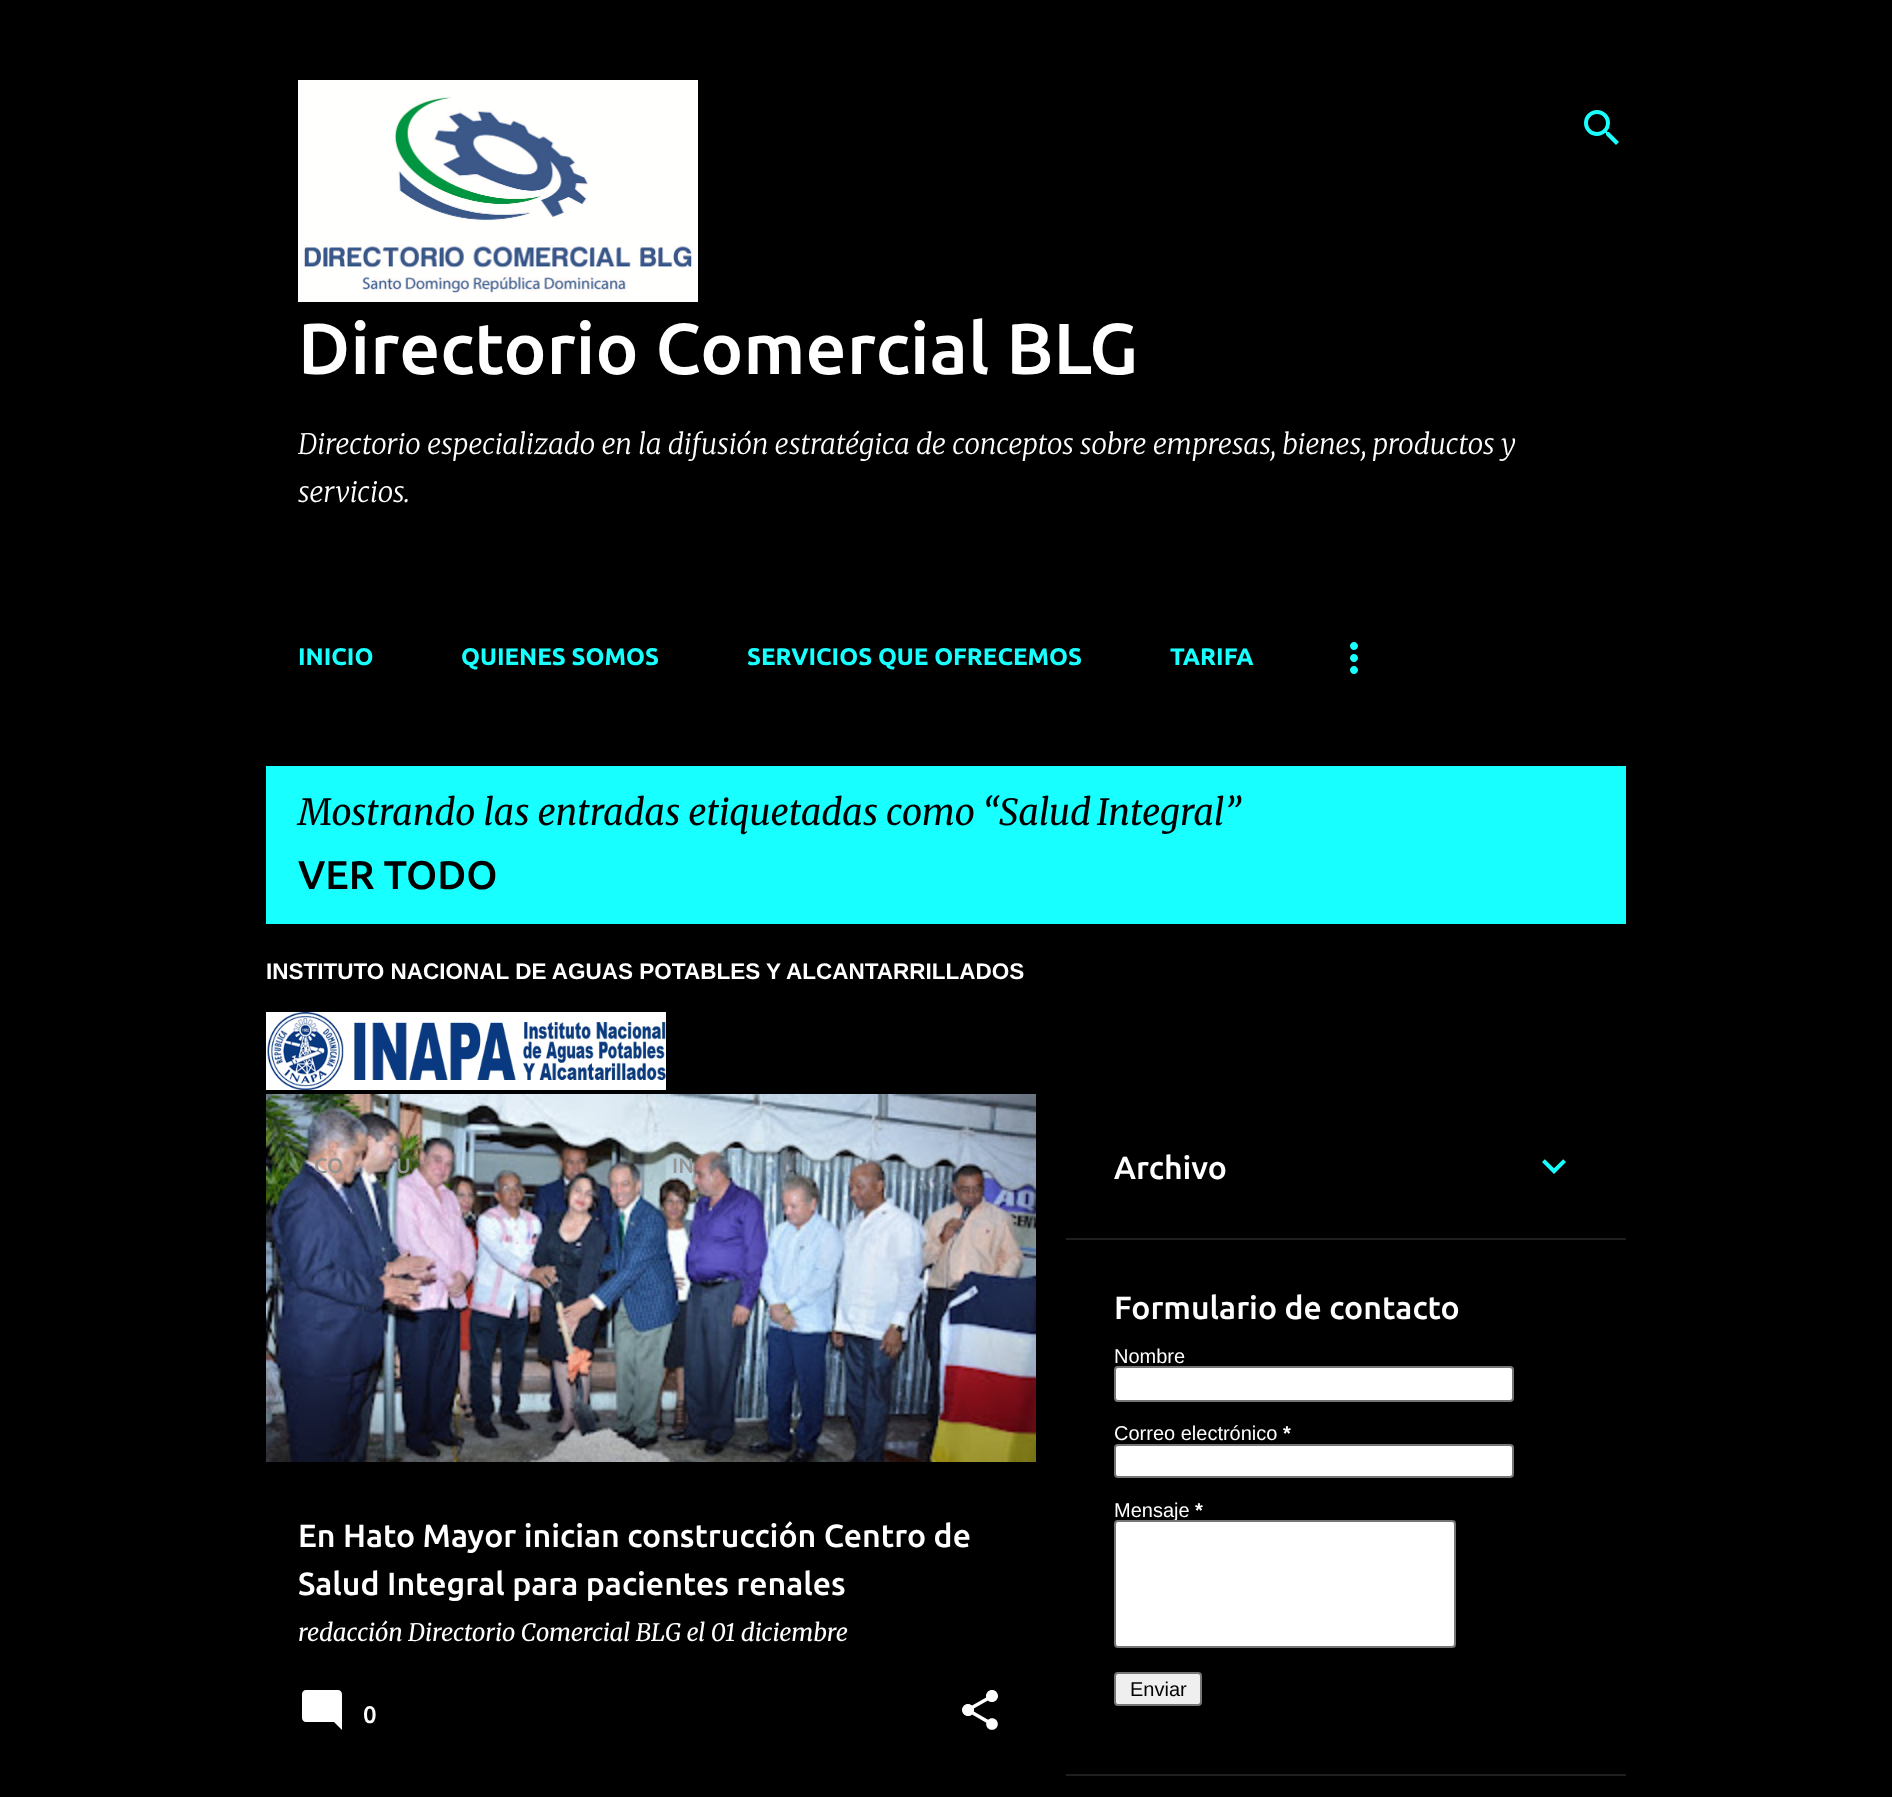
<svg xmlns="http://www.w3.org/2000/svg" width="1892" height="1797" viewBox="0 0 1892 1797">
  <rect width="100%" height="100%" fill="rgb(0,0,0)"/>
  <image x="1584" y="110" width="35" height="35" href="pic1.png"/>
  <image x="298" y="80" width="400" height="222" href="pic2.png"/>
  <text x="298" y="374" font-family="Ubuntu" font-size="72" font-weight="500" fill="rgb(255,255,255)">Directorio Comercial BLG</text>
  <g font-family="Merriweather" font-size="28" font-weight="300" font-style="italic" fill="rgb(255,255,255)">
    <text>
      <tspan x="298" y="454">Directorio especializado en la difusión estratégica de conceptos sobre empresas, bienes, productos y</tspan>
      <tspan x="298" y="502">servicios.</tspan>
    </text>
  </g>
  <g font-family="Ubuntu" font-size="24" font-weight="bold" fill="rgb(24,255,255)">
    <text x="298" y="665">INICIO</text>
    <text x="461" y="665">QUIENES SOMOS</text>
    <text x="747" y="665">SERVICIOS QUE OFRECEMOS</text>
    <text x="1170" y="665">TARIFA</text>
  </g>
  <image x="1350" y="642" width="8" height="32" href="pic3.png"/>
  <rect x="266" y="766" width="1360" height="158" fill="rgb(24,255,255)"/>
  <g font-family="Merriweather" font-size="36" font-style="italic" fill="rgb(0,0,0)">
    <text x="298" y="825">Mostrando las entradas etiquetadas como “</text>
    <text x="999" y="825" word-spacing="-2">Salud Integral</text>
    <text x="1224" y="825">”</text>
  </g>
  <text x="298" y="889" font-family="Ubuntu" font-size="40" font-weight="500" fill="rgb(0,0,0)">VER TODO</text>
  <text x="266" y="979" font-family="Liberation Sans" font-size="22.5" font-weight="bold" fill="rgb(255,255,255)">INSTITUTO NACIONAL DE AGUAS POTABLES Y ALCANTARRILLADOS</text>
  <image x="266" y="1012" width="400" height="78" href="pic4.png"/>
  <image x="266" y="1094" width="770" height="368" href="pic5.png"/>
  <g font-family="Ubuntu" font-size="21" font-weight="500" fill="rgb(148,148,149)">
    <text x="314" y="1173">CO</text>
    <text x="396" y="1173">U</text>
    <text x="672" y="1173">IN</text>
  </g>
  <text x="298" y="1641" font-family="Merriweather" font-size="24" font-style="italic" fill="rgb(255,255,255)">redacción Directorio Comercial BLG el 01 diciembre</text>
  <g font-family="Ubuntu" font-size="32" font-weight="500" fill="rgb(255,255,255)">
    <text>
      <tspan x="298" y="1547">En Hato Mayor inician construcción Centro de</tspan>
      <tspan x="298" y="1595">Salud Integral para pacientes renales</tspan>
    </text>
  </g>
  <image x="302" y="1690" width="40" height="40" href="pic6.png"/>
  <text x="363" y="1723" font-family="Ubuntu" font-size="24" font-weight="500" fill="rgb(255,255,255)">0</text>
  <image x="962" y="1690" width="36" height="40" href="pic7.png"/>
  <text x="1114" y="1179" font-family="Ubuntu" font-size="32" font-weight="500" fill="rgb(255,255,255)">Archivo</text>
  <image x="1542" y="1159" width="24" height="15" href="pic8.png"/>
  <rect x="1066" y="1238" width="560" height="2" fill="rgb(31,31,31)"/>
  <text x="1114" y="1319" font-family="Ubuntu" font-size="32" font-weight="500" fill="rgb(255,255,255)">Formulario de contacto</text>
  <text x="1114" y="1363" font-family="Liberation Sans" font-size="20" fill="rgb(255,255,255)">Nombre</text>
  <rect x="1115" y="1367" width="398" height="34" rx="3" fill="rgb(255,255,255)" stroke="rgb(118,118,118)" stroke-width="2"/>
  <text x="1114" y="1440" font-family="Liberation Sans" font-size="20" fill="rgb(255,255,255)">Correo electrónico</text>
  <text x="1283" y="1440" font-family="Liberation Sans" font-size="20" font-weight="bold" fill="rgb(255,255,255)">*</text>
  <rect x="1115" y="1445" width="398" height="32" rx="3" fill="rgb(255,255,255)" stroke="rgb(118,118,118)" stroke-width="2"/>
  <text x="1114" y="1517" font-family="Liberation Sans" font-size="20" fill="rgb(255,255,255)">Mensaje</text>
  <text x="1195" y="1517" font-family="Liberation Sans" font-size="20" font-weight="bold" fill="rgb(255,255,255)">*</text>
  <rect x="1115" y="1521" width="340" height="126" rx="3" fill="rgb(255,255,255)" stroke="rgb(118,118,118)" stroke-width="2"/>
  <rect x="1115" y="1673" width="86" height="32" rx="3" fill="rgb(239,239,239)" stroke="rgb(118,118,118)" stroke-width="2"/>
  <text x="1130" y="1696" font-family="Liberation Sans" font-size="20" fill="rgb(0,0,0)">Enviar</text>
  <rect x="1066" y="1774" width="560" height="2" fill="rgb(31,31,31)"/>
</svg>
